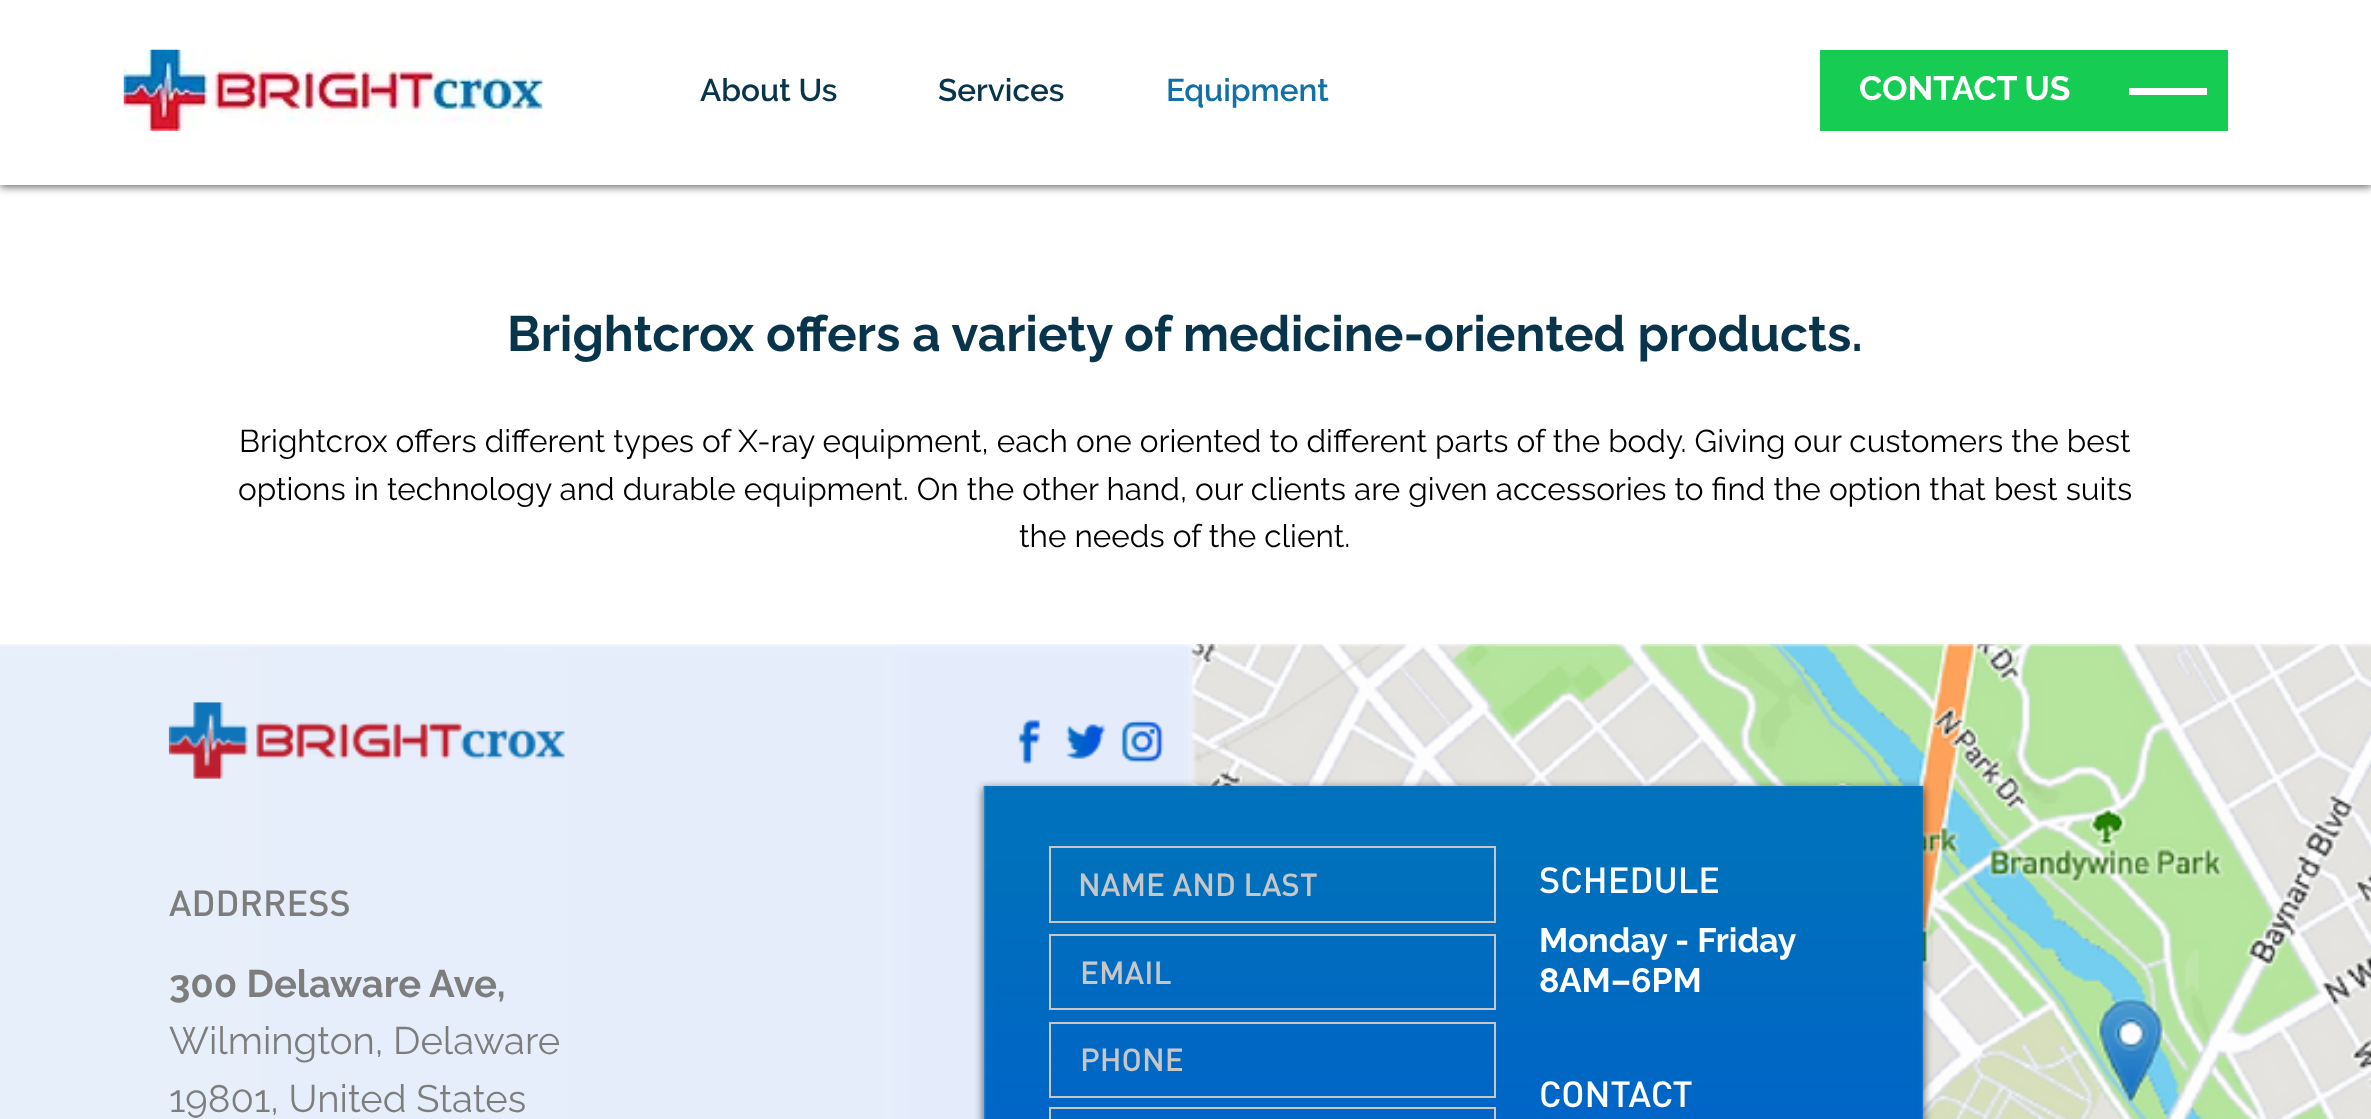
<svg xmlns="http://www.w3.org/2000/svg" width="2371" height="1119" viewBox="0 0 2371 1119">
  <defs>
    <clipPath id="clip1"><path d="M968 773H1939V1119H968ZM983 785H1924V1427H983Z" clip-rule="evenodd"/></clipPath>
  </defs>
  <rect width="100%" height="100%" fill="rgb(255,255,255)"/>
  <rect x="0" y="2" width="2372" height="185" fill="rgba(0,0,0,0.6)" filter="blur(4.5px)"/>
  <rect x="0" y="0" width="2371" height="185" fill="rgb(255,255,255)"/>
  <image x="123" y="49" width="420" height="82" href="pic1.png"/>
  <g font-family="Raleway" font-size="31.5" font-weight="600" fill="rgb(8,52,76)">
    <text x="700" y="101">About Us</text>
    <text x="938" y="101">Services</text>
  </g>
  <text x="1166" y="101" font-family="Raleway" font-size="31.5" font-weight="600" fill="rgb(17,113,166)">Equipment</text>
  <rect x="1820" y="50" width="408" height="81" fill="rgb(22,204,83)"/>
  <text x="1859" y="100" font-family="'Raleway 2'" font-size="33.75" font-weight="bold" fill="rgb(255,255,255)">CONTACT US</text>
  <rect x="2129" y="88" width="78" height="7" fill="rgb(255,255,255)"/>
  <text x="507" y="351" font-family="Raleway" font-size="49.5" font-weight="bold" fill="rgb(8,52,76)">Brightcrox offers a variety of medicine-oriented products.</text>
  <g font-family="Raleway" font-size="31.5" fill="rgb(0,0,0)">
    <text x="239" y="452">Brightcrox offers different types of X-ray equipment, each one oriented to different parts of the body. Giving our customers the best</text>
    <text x="238" y="500">options in technology and durable equipment. On the other hand, our clients are given accessories to find the option that best suits</text>
    <text x="1019" y="547">the needs of the client.</text>
  </g>
  <image x="0" y="643" width="2371" height="476" href="pic2.png"/>
  <image x="168" y="702" width="397" height="77" href="pic3.png"/>
  <text x="169" y="916" font-family="DIN" font-size="36" font-weight="500" fill="rgb(125,125,125)">ADDRRESS</text>
  <g clip-path="url(#clip1)">
    <rect x="983" y="788" width="941" height="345" fill="rgba(0,0,0,0.6)" filter="blur(4.5px)"/>
  </g>
  <image x="1018" y="719" width="23" height="45" href="pic4.png"/>
  <image x="1066" y="724" width="40" height="36" href="pic5.png"/>
  <image x="1120" y="720" width="44" height="43" href="pic6.png"/>
  <image x="983" y="785" width="941" height="334" href="pic7.png"/>
  <rect x="1050" y="847" width="445" height="75" fill="none" stroke="rgb(199,199,199)" stroke-width="2"/>
  <text x="1078" y="896" font-family="DIN" font-size="31.5" font-weight="500" fill="rgb(199,199,199)">NAME AND LAST</text>
  <text x="1539" y="893" font-family="DIN" font-size="36" font-weight="500" fill="rgb(255,255,255)">SCHEDULE</text>
  <rect x="1050" y="935" width="445" height="74" fill="none" stroke="rgb(199,199,199)" stroke-width="2"/>
  <text x="1080" y="984" font-family="DIN" font-size="31.5" font-weight="500" fill="rgb(199,199,199)">EMAIL</text>
  <g font-family="Raleway" font-size="33.75" font-weight="bold" fill="rgb(255,255,255)">
    <text>
      <tspan x="1539" y="952">Monday - Friday</tspan>
      <tspan x="1539" y="992">8AM–6PM</tspan>
    </text>
  </g>
  <rect x="1050" y="1023" width="445" height="74" fill="none" stroke="rgb(199,199,199)" stroke-width="2"/>
  <text x="1080" y="1071" font-family="DIN" font-size="31.5" font-weight="500" fill="rgb(199,199,199)">PHONE</text>
  <text x="1539" y="1107" font-family="DIN" font-size="36" font-weight="500" fill="rgb(255,255,255)">CONTACT</text>
  <rect x="1050" y="1108" width="445" height="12" fill="none" stroke="rgb(199,199,199)" stroke-width="2"/>
  <text x="169" y="997" font-family="Raleway" font-size="38.25" font-weight="bold" fill="rgb(125,125,125)">300 Delaware Ave,</text>
  <g font-family="Raleway" font-size="38.25" fill="rgb(125,125,125)">
    <text>
      <tspan x="169" y="1054">Wilmington, Delaware</tspan>
      <tspan x="169" y="1112">19801, United States</tspan>
    </text>
  </g>
</svg>
